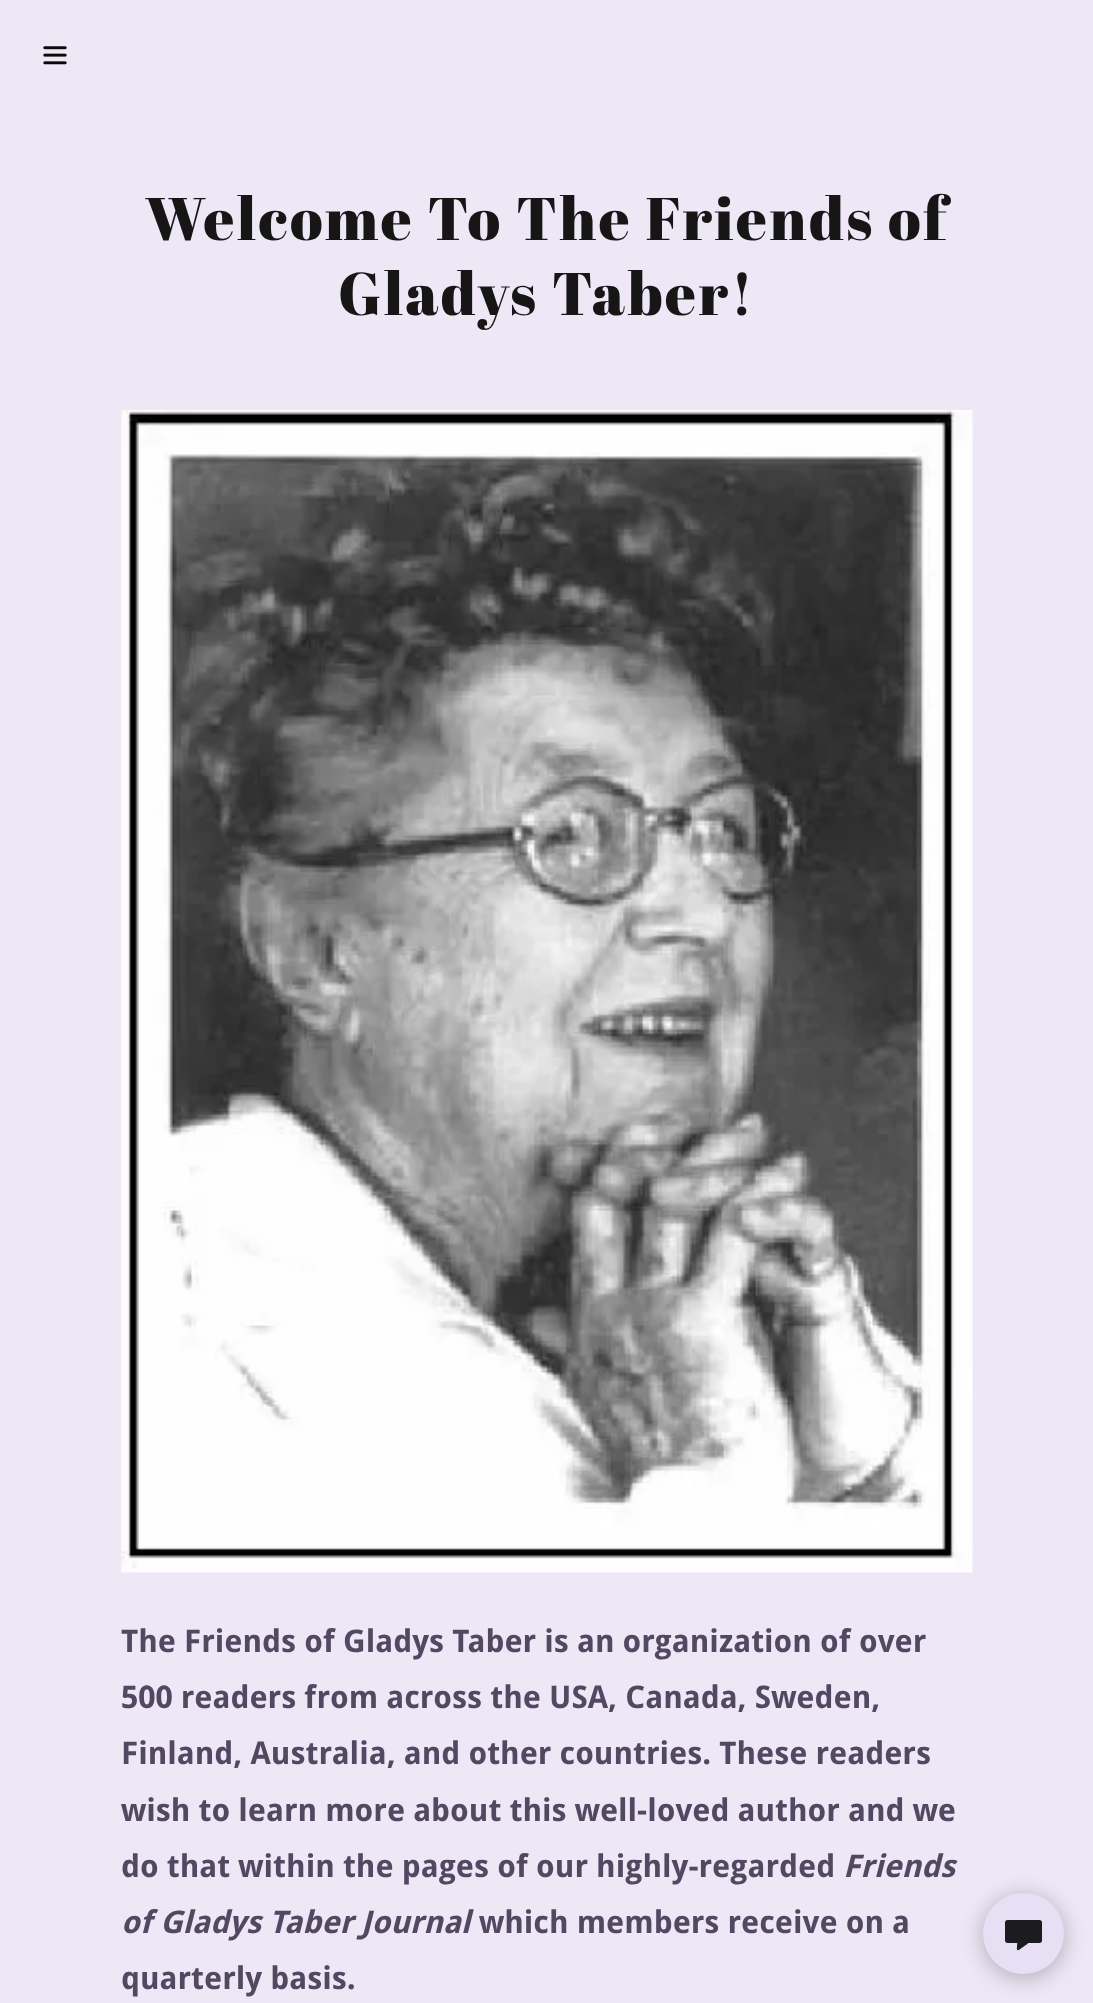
<svg xmlns="http://www.w3.org/2000/svg" width="1093" height="2003" viewBox="0 0 1093 2003">
  <rect width="100%" height="100%" fill="rgb(237,231,246)"/>
  <image x="43" y="46" width="24" height="19" href="pic1.png"/>
  <g font-family="Abril Fatface" font-size="60" letter-spacing="2.5" fill="rgb(22,22,22)">
    <text x="145" y="240">Welcome To The Friends of</text>
    <text x="338" y="315">Gladys Taber!</text>
  </g>
  <image x="121" y="410" width="852" height="1163" href="pic2.png"/>
  <g font-family="Droid Sans" font-size="31.25" font-weight="bold" fill="rgb(83,72,98)">
    <text>
      <tspan x="121" y="1652">The Friends of Gladys Taber is an organization of over</tspan>
      <tspan x="121" y="1708">500 readers from across the USA, Canada, Sweden,</tspan>
      <tspan x="121" y="1764">Finland, Australia, and other countries. These readers</tspan>
      <tspan x="121" y="1821">wish to learn more about this well-loved author and we</tspan>
      <tspan x="121" y="1877">do that within the pages of our highly-regarded</tspan>
    </text>
  </g>
  <g font-family="Droid Sans" font-size="31.25" font-weight="bold" font-style="italic" fill="rgb(83,72,98)">
    <text x="843" y="1877">Friends</text>
    <text x="121" y="1933">of Gladys Taber Journal</text>
  </g>
  <g font-family="Droid Sans" font-size="31.25" font-weight="bold" fill="rgb(83,72,98)">
    <text x="479" y="1933">which members receive on a</text>
    <text x="121" y="1989">quarterly basis.</text>
  </g>
  <rect x="983" y="1896" width="81" height="82" rx="40.5" fill="rgba(0,0,0,0.25)" filter="blur(11px)"/>
  <circle cx="1023.5" cy="1933.5" r="40.5" fill="rgb(231,223,243)"/>
  <image x="1005" y="1920" width="37" height="31" href="pic3.png"/>
</svg>
